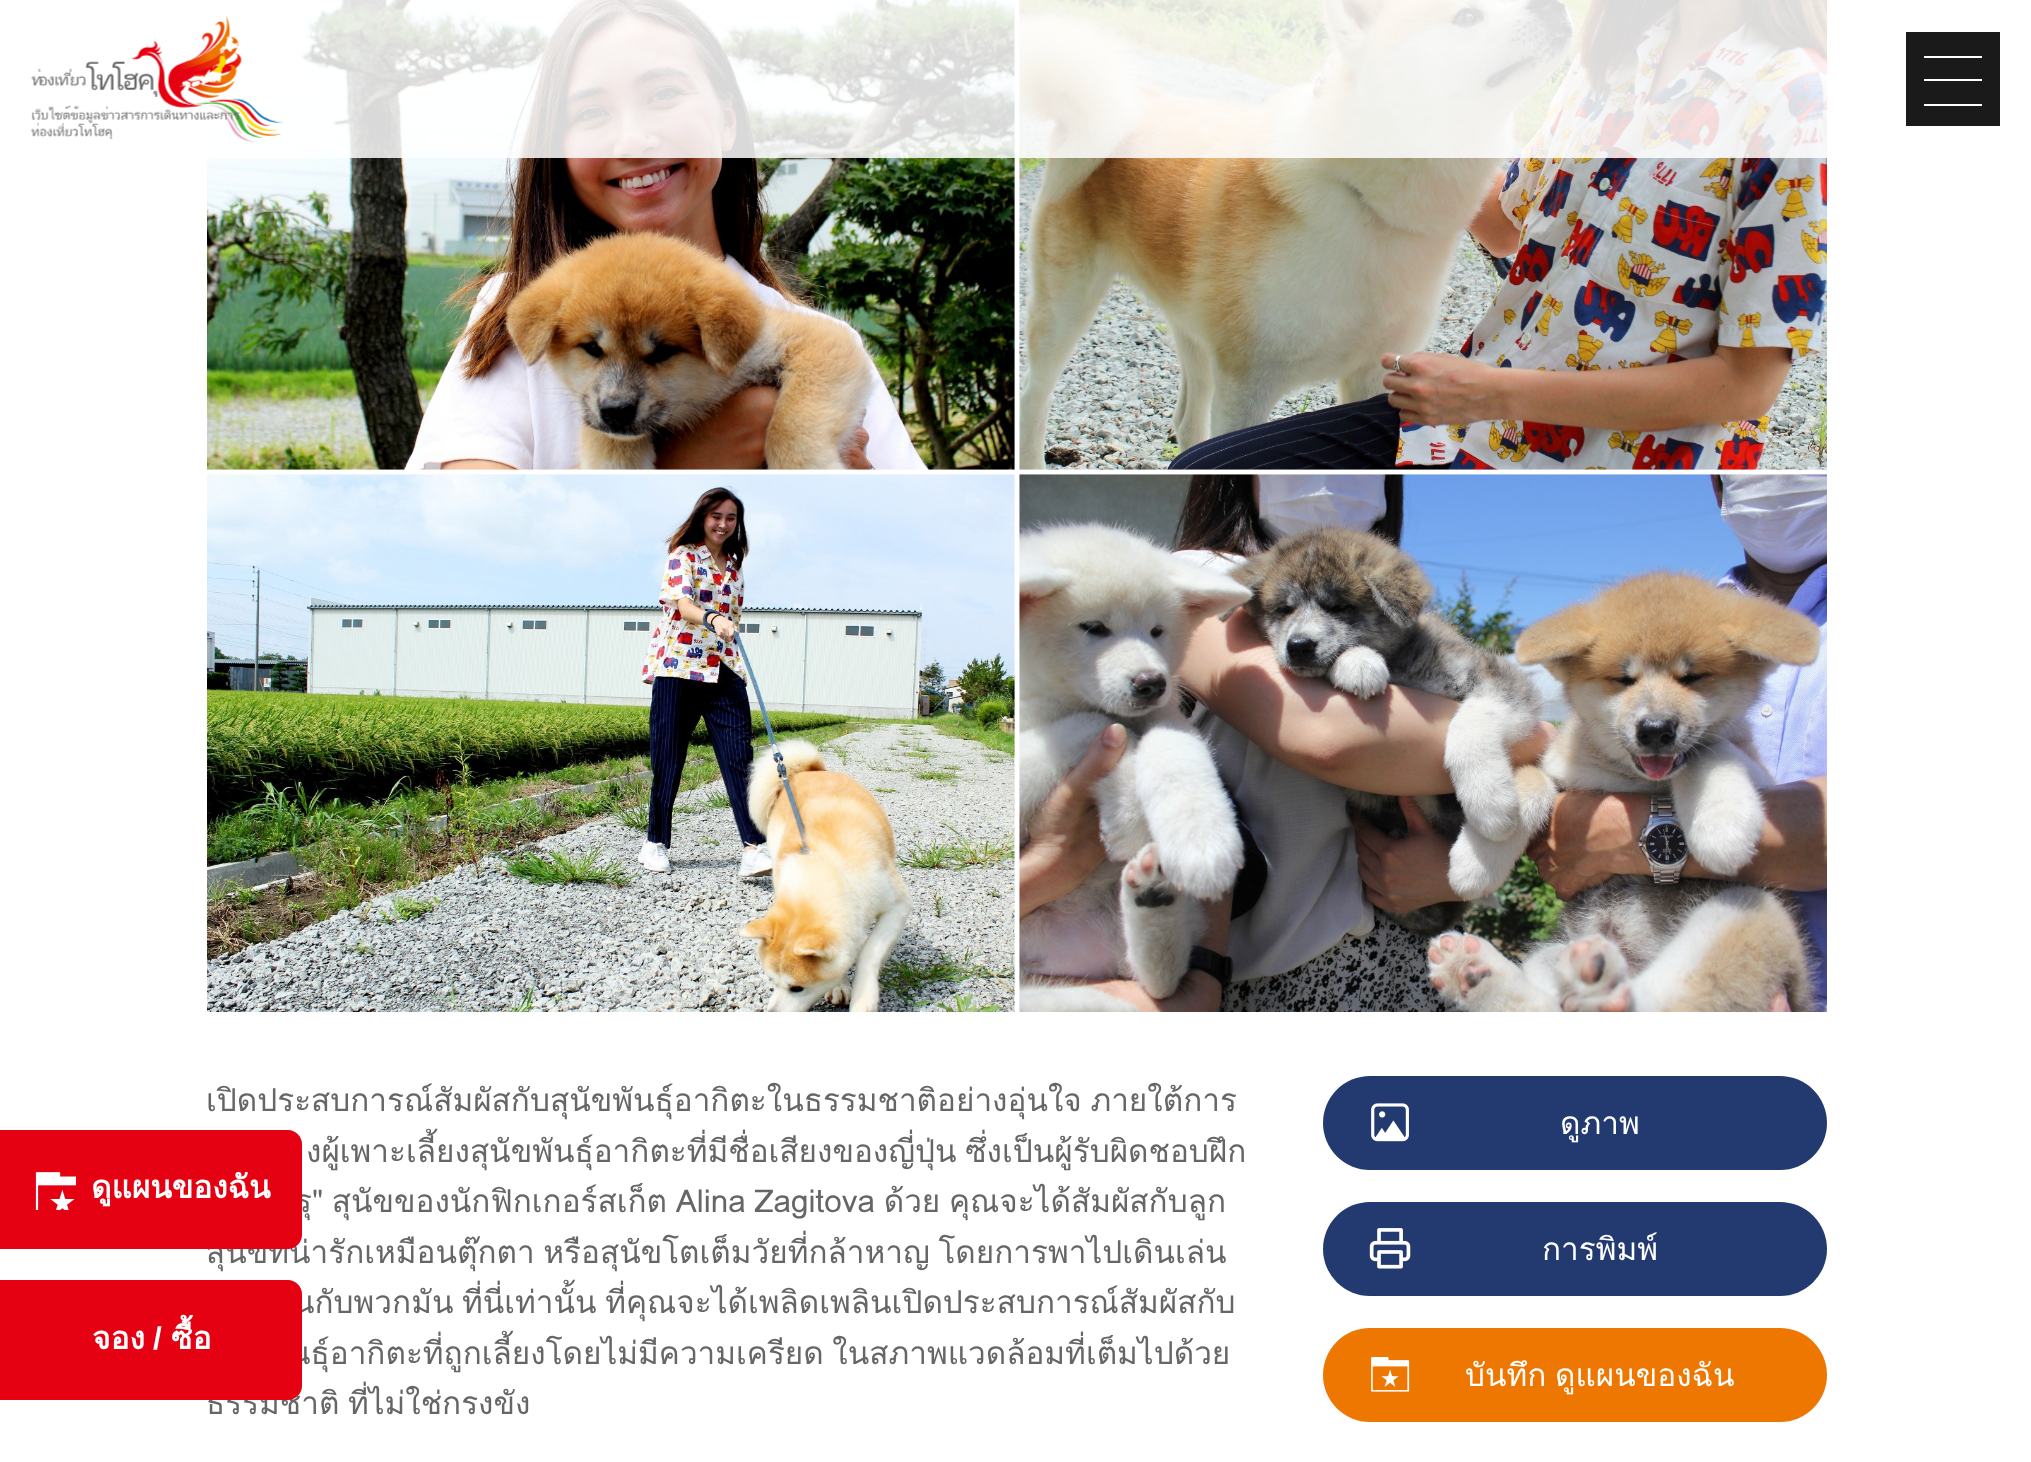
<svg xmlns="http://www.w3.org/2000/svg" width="2031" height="1462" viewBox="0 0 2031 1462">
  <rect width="100%" height="100%" fill="rgb(255,255,255)"/>
  <image x="207" y="0" width="808" height="470" href="pic3.png"/>
  <image x="1019" y="0" width="808" height="470" href="pic4.png"/>
  <rect x="207" y="0" width="1620" height="158" fill="rgba(255,255,255,0.85)"/>
  <image x="31" y="16" width="252" height="126" href="pic1.png"/>
  <rect x="1906" y="32" width="94" height="94" fill="rgb(26,26,26)"/>
  <rect x="1924" y="56" width="58" height="2" fill="rgb(255,255,255)"/>
  <rect x="1924" y="79" width="58" height="2" fill="rgb(255,255,255)"/>
  <rect x="1924" y="104" width="58" height="2" fill="rgb(255,255,255)"/>
  <g font-family="Loma" font-size="31.5" fill="rgb(102,102,102)">
    <text x="295" y="1212" word-spacing="-2">รุ" สุนัขของนักฟิกเกอร์สเก็ต Alina Zagitova ด้วย คุณจะได้สัมผัสกับลูก</text>
    <text x="206" y="1263" word-spacing="-2">สุนัขที่น่ารักเหมือนตุ๊กตา หรือสุนัขโตเต็มวัยที่กล้าหาญ โดยการพาไปเดินเล่น</text>
  </g>
  <path d="M0 1130H288C295.5 1130 302 1136.5 302 1144V1235C302 1242.5 295.5 1249 288 1249H0Z" fill="rgb(229,0,18)"/>
  <image x="35" y="1172" width="41" height="38" href="pic2.png"/>
  <text x="91" y="1198" font-family="Loma" font-size="31.5" font-weight="bold" fill="rgb(255,255,255)">ดูแผนของฉัน</text>
  <g font-family="Loma" font-size="31.5" fill="rgb(102,102,102)">
    <text x="293" y="1313" word-spacing="-2">นกับพวกมัน ที่นี่เท่านั้น ที่คุณจะได้เพลิดเพลินเปิดประสบการณ์สัมผัสกับ</text>
    <text x="289" y="1364" word-spacing="-2">นธุ์อากิตะที่ถูกเลี้ยงโดยไม่มีความเครียด ในสภาพแวดล้อมที่เต็มไปด้วย</text>
    <text x="206" y="1414" word-spacing="-2">ธรรมชาติ ที่ไม่ใช่กรงขัง</text>
  </g>
  <path d="M0 1280H288C295.5 1280 302 1286.5 302 1294V1386C302 1393.5 295.5 1400 288 1400H0Z" fill="rgb(229,0,18)"/>
  <text x="153" y="1349" font-family="Liberation Sans" font-size="31.5" font-weight="bold" fill="rgb(255,255,255)">/</text>
  <g font-family="Loma" font-size="31.5" font-weight="bold" fill="rgb(255,255,255)">
    <text x="171" y="1349">ซื้อ</text>
    <text x="92" y="1349">จอง</text>
  </g>
  <image x="207" y="474" width="808" height="538" href="pic5.png"/>
  <image x="1019" y="474" width="808" height="538" href="pic6.png"/>
  <g font-family="Loma" font-size="31.5" fill="rgb(102,102,102)">
    <text x="206" y="1111" word-spacing="-2">เปิดประสบการณ์สัมผัสกับสุนัขพันธุ์อากิตะในธรรมชาติอย่างอุ่นใจ ภายใต้การ</text>
    <text x="306" y="1162" word-spacing="-2">งผู้เพาะเลี้ยงสุนัขพันธุ์อากิตะที่มีชื่อเสียงของญี่ปุ่น ซึ่งเป็นผู้รับผิดชอบฝึก</text>
  </g>
  <rect x="1323" y="1076" width="504" height="94" rx="47" fill="rgb(34,58,112)"/>
  <image x="1371" y="1103" width="38" height="39" href="pic7.png"/>
  <text x="1560" y="1134" font-family="Loma" font-size="31.5" fill="rgb(255,255,255)">ดูภาพ</text>
  <rect x="1323" y="1202" width="504" height="94" rx="47" fill="rgb(34,58,112)"/>
  <image x="1369" y="1228" width="42" height="41" href="pic8.png"/>
  <text x="1542" y="1260" font-family="Loma" font-size="31.5" fill="rgb(255,255,255)">การพิมพ์</text>
  <rect x="1323" y="1328" width="504" height="94" rx="47" fill="rgb(237,119,0)"/>
  <image x="1371" y="1357" width="39" height="35" href="pic9.png"/>
  <text x="1465" y="1386" word-spacing="-2" font-family="Loma" font-size="31.5" fill="rgb(255,255,255)">บันทึก ดูแผนของฉัน</text>
</svg>
